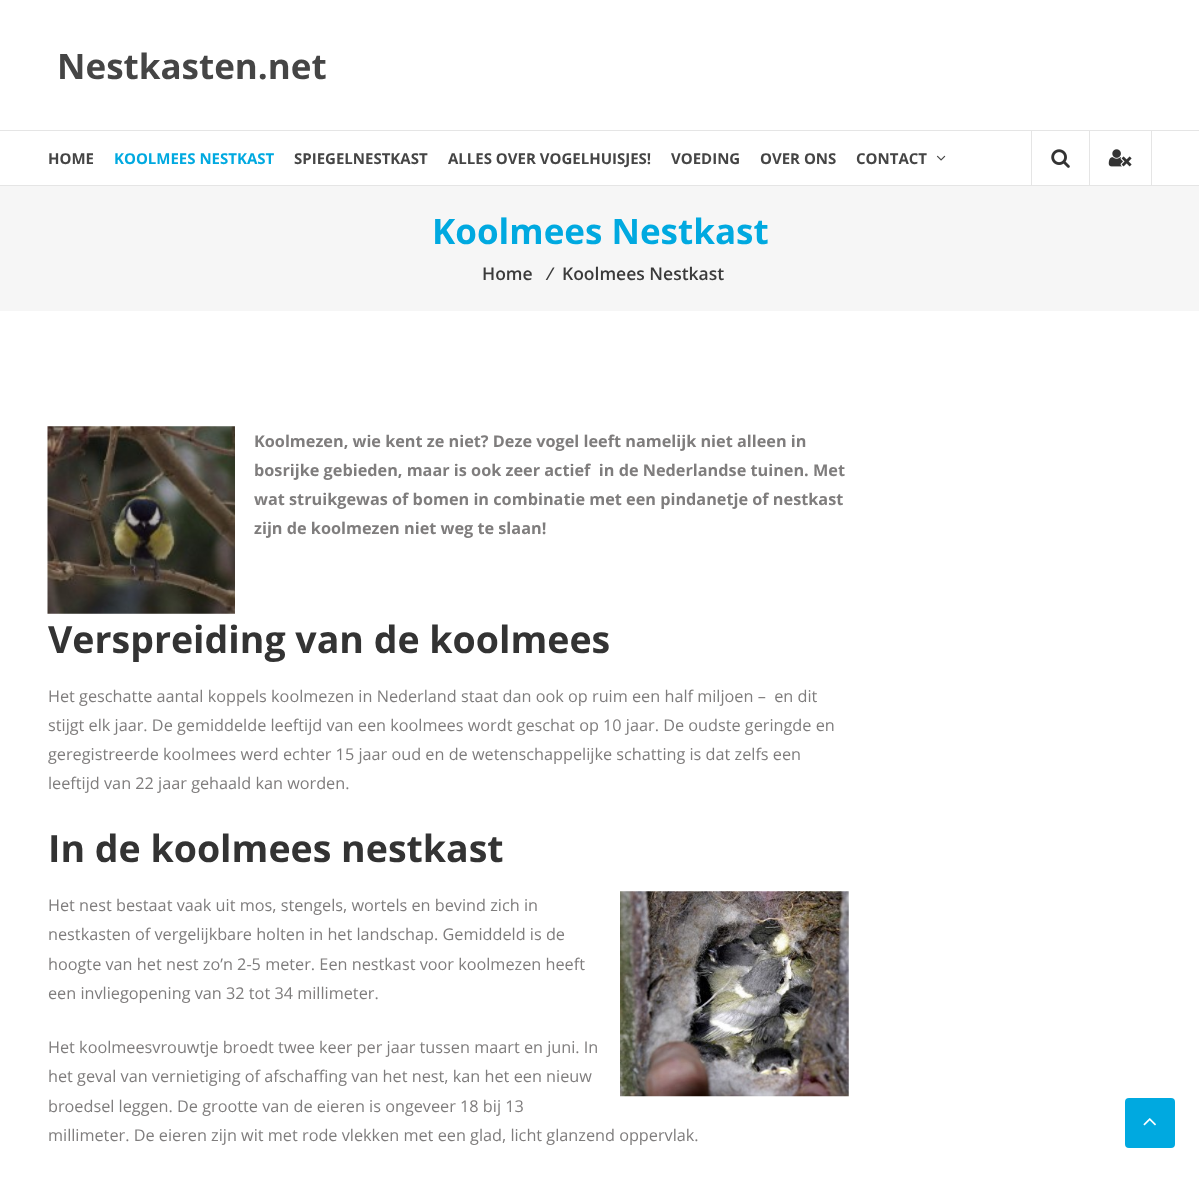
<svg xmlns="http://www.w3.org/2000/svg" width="1199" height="1184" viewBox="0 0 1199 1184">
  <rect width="100%" height="100%" fill="rgb(255,255,255)"/>
  <text x="57" y="79" font-family="Open Sans" font-size="35" font-weight="bold" fill="rgb(69,69,69)">Nestkasten.net</text>
  <rect x="0" y="130" width="1199" height="1" fill="rgb(229,229,229)"/>
  <rect x="0" y="185" width="1199" height="1" fill="rgb(229,229,229)"/>
  <text x="48" y="164" font-family="Open Sans" font-size="15" font-weight="bold" fill="rgb(69,69,69)">HOME</text>
  <text x="114" y="164" font-family="Open Sans" font-size="15" font-weight="bold" fill="rgb(0,169,224)">KOOLMEES NESTKAST</text>
  <g font-family="Open Sans" font-size="15" font-weight="bold" fill="rgb(69,69,69)">
    <text x="294" y="164">SPIEGELNESTKAST</text>
    <text x="448" y="164">ALLES OVER VOGELHUISJES!</text>
    <text x="671" y="164">VOEDING</text>
    <text x="760" y="164">OVER ONS</text>
    <text x="856" y="164">CONTACT</text>
  </g>
  <image x="936" y="155" width="10" height="6" href="pic1.png"/>
  <rect x="1031" y="131" width="1" height="54" fill="rgb(229,229,229)"/>
  <image x="1051" y="149" width="19" height="19" href="pic2.png"/>
  <rect x="1151" y="131" width="1" height="54" fill="rgb(229,229,229)"/>
  <rect x="1089" y="131" width="1" height="54" fill="rgb(229,229,229)"/>
  <image x="1108" y="149" width="24" height="18" href="pic3.png"/>
  <rect x="0" y="186" width="1199" height="125" fill="rgb(246,246,246)"/>
  <text x="432" y="244" font-family="Open Sans" font-size="35" font-weight="bold" fill="rgb(0,169,224)">Koolmees Nestkast</text>
  <g font-family="Open Sans" font-size="17.5" font-weight="600" fill="rgb(59,59,59)">
    <text x="482" y="280">Home</text>
    <text x="549" y="280">⁄</text>
    <text x="562" y="280">Koolmees Nestkast</text>
  </g>
  <image x="47" y="426" width="188" height="188" href="pic4.png"/>
  <g font-family="Open Sans" font-size="16.25" font-weight="bold" fill="rgb(127,125,125)">
    <text xml:space="preserve"><tspan x="254" y="447">Koolmezen, wie kent ze niet? Deze vogel leeft namelijk niet alleen in</tspan><tspan x="254" y="476">bosrijke gebieden, maar is ook zeer actief  in de Nederlandse tuinen. Met</tspan><tspan x="254" y="505">wat struikgewas of bomen in combinatie met een pindanetje of nestkast</tspan><tspan x="254" y="534">zijn de koolmezen niet weg te slaan!</tspan></text>
  </g>
  <text x="48" y="653" font-family="Open Sans" font-size="37.5" font-weight="bold" fill="rgb(51,51,51)">Verspreiding van de koolmees</text>
  <g font-family="Open Sans" font-size="16.25" fill="rgb(127,125,125)">
    <text xml:space="preserve"><tspan x="48" y="702">Het geschatte aantal koppels koolmezen in Nederland staat dan ook op ruim een half miljoen –  en dit</tspan><tspan x="48" y="731">stijgt elk jaar. De gemiddelde leeftijd van een koolmees wordt geschat op 10 jaar. De oudste geringde en</tspan><tspan x="48" y="760">geregistreerde koolmees werd echter 15 jaar oud en de wetenschappelijke schatting is dat zelfs een</tspan><tspan x="48" y="789">leeftijd van 22 jaar gehaald kan worden.</tspan></text>
  </g>
  <text x="48" y="862" font-family="Open Sans" font-size="37.5" font-weight="bold" fill="rgb(51,51,51)">In de koolmees nestkast</text>
  <text x="48" y="911" font-family="Open Sans" font-size="16.25" fill="rgb(127,125,125)">Het nest bestaat vaak uit mos, stengels, wortels en bevind zich in</text>
  <image x="620" y="891" width="229" height="206" href="pic5.png"/>
  <g font-family="Open Sans" font-size="16.25" fill="rgb(127,125,125)">
    <text>
      <tspan x="48" y="940">nestkasten of vergelijkbare holten in het landschap. Gemiddeld is de</tspan>
      <tspan x="48" y="970">hoogte van het nest zo’n 2-5 meter. Een nestkast voor koolmezen heeft</tspan>
      <tspan x="48" y="999">een invliegopening van 32 tot 34 millimeter.</tspan>
    </text>
    <text>
      <tspan x="48" y="1053">Het koolmeesvrouwtje broedt twee keer per jaar tussen maart en juni. In</tspan>
      <tspan x="48" y="1082">het geval van vernietiging of afschaffing van het nest, kan het een nieuw</tspan>
      <tspan x="48" y="1112">broedsel leggen. De grootte van de eieren is ongeveer 18 bij 13</tspan>
      <tspan x="48" y="1141">millimeter. De eieren zijn wit met rode vlekken met een glad, licht glanzend oppervlak.</tspan>
    </text>
  </g>
  <rect x="1125" y="1098" width="50" height="50" rx="4" fill="rgb(0,169,224)"/>
  <image x="1143" y="1118" width="13" height="8" href="pic6.png"/>
</svg>
